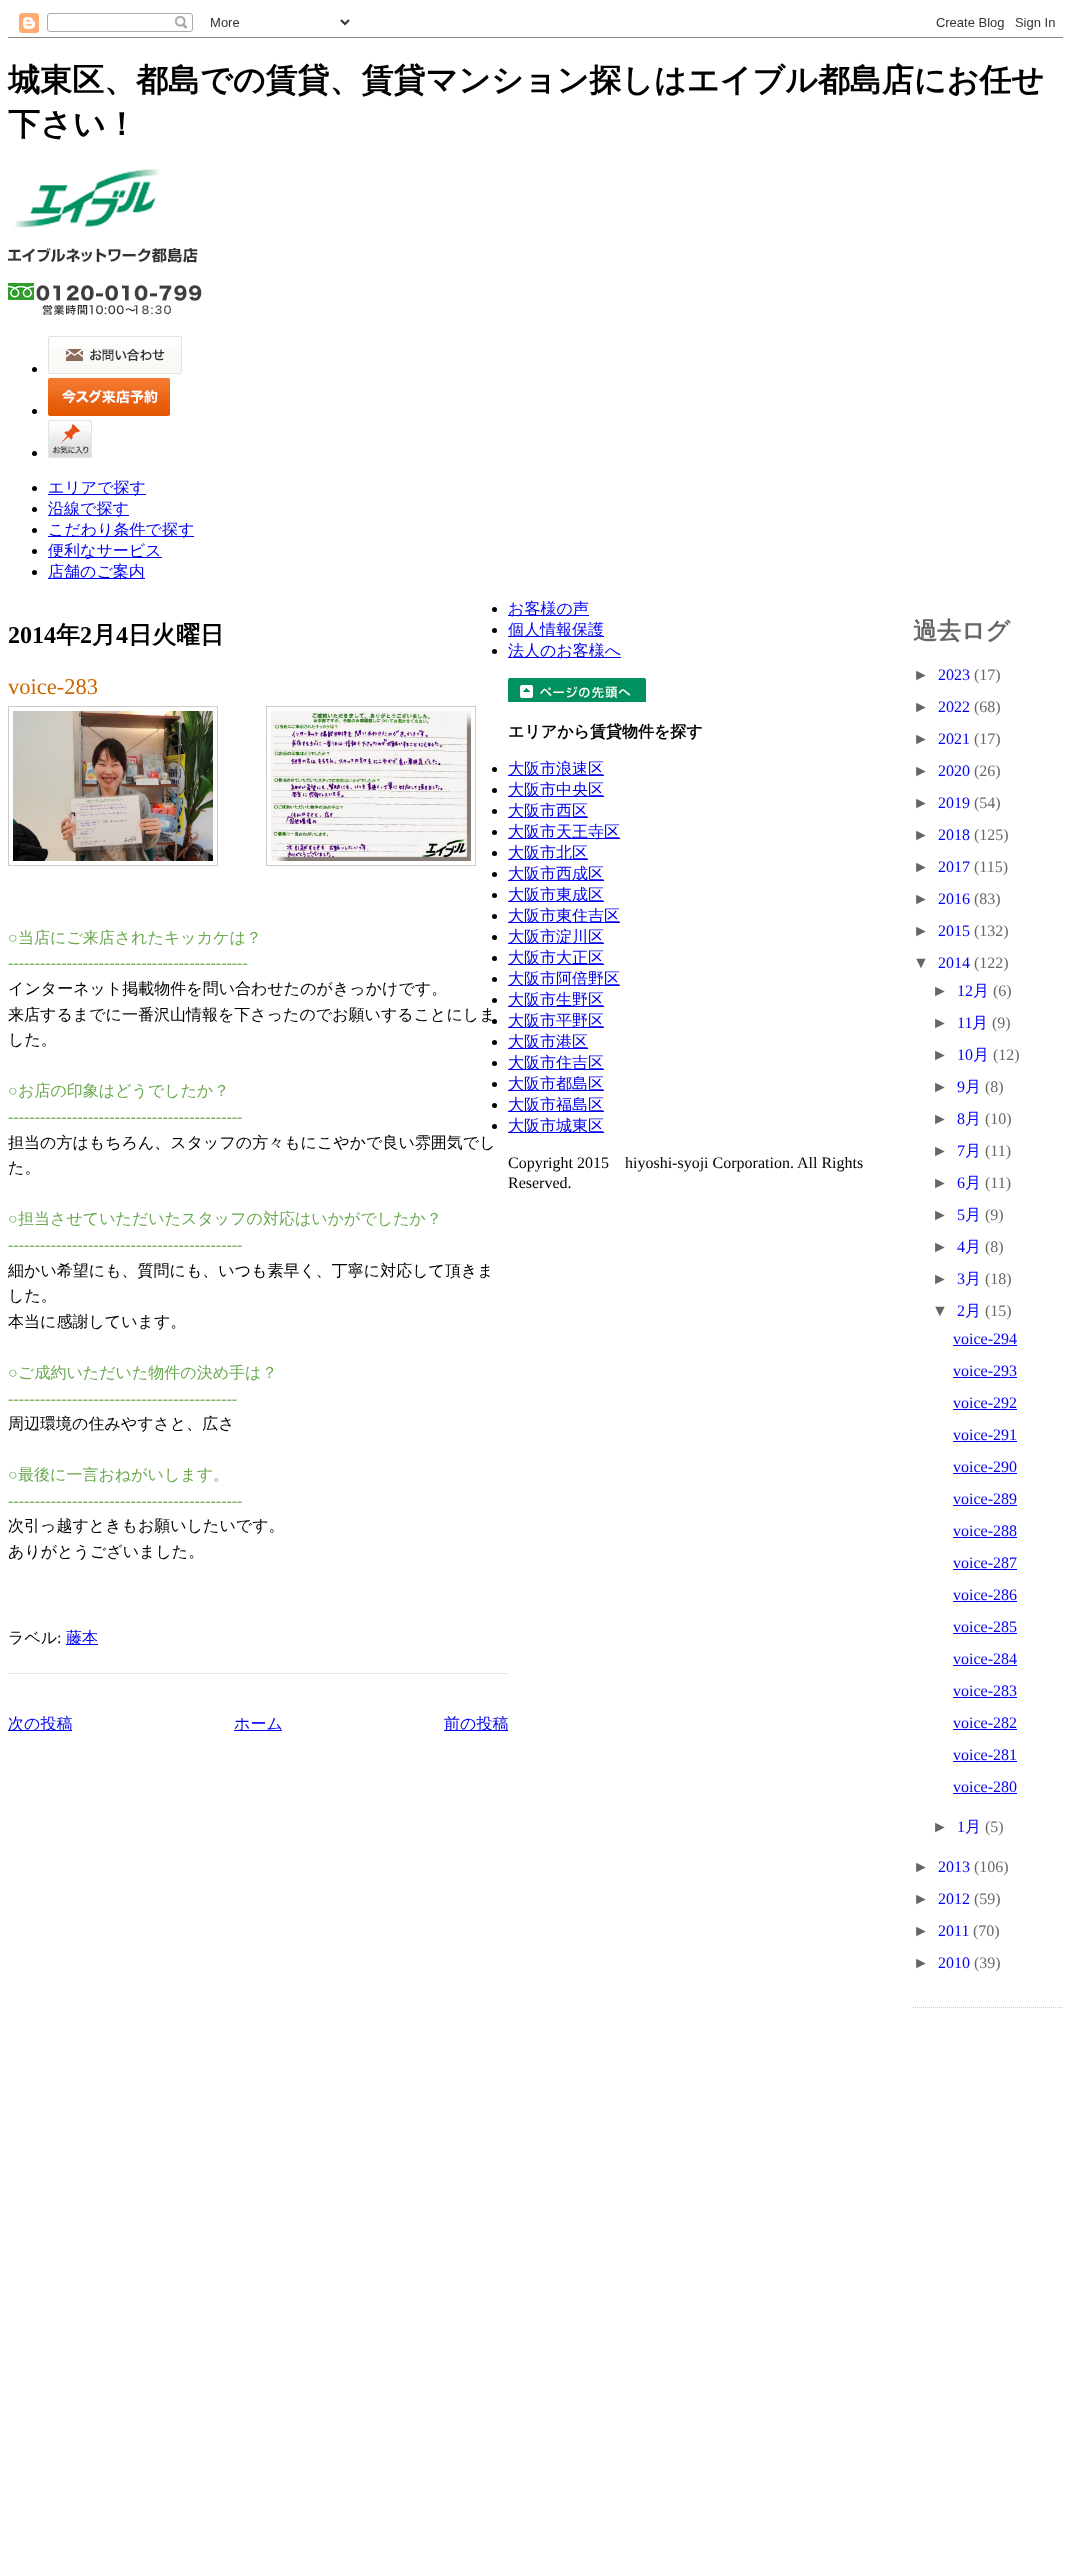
<svg xmlns="http://www.w3.org/2000/svg" width="1071" height="2564" viewBox="0 0 1071 2564">
  <rect width="100%" height="100%" fill="rgb(255,255,255)"/>
  <image x="8" y="13" width="1055" height="25" href="pic1.png"/>
  <g font-family="WenQuanYi Zen Hei" font-size="32" font-weight="bold" fill="rgb(0,0,0)">
    <text>
      <tspan x="8" y="91">城東区、都島での賃貸、賃貸マンション探しはエイブル都島店にお任せ</tspan>
      <tspan x="8" y="135">下さい！</tspan>
    </text>
  </g>
  <image x="14" y="169" width="147" height="59" href="pic2.png"/>
  <image x="8" y="248" width="190" height="15" href="pic3.png"/>
  <image x="8" y="283" width="194" height="32" href="pic4.png"/>
  <circle cx="34.5" cy="369.5" r="2.5" fill="rgb(0,0,0)"/>
  <image x="48" y="336" width="134" height="38" href="pic5.png"/>
  <circle cx="34.5" cy="411.5" r="2.5" fill="rgb(0,0,0)"/>
  <image x="48" y="378" width="122" height="38" href="pic6.png"/>
  <circle cx="34.5" cy="453.5" r="2.5" fill="rgb(0,0,0)"/>
  <image x="48" y="420" width="44" height="38" href="pic7.png"/>
  <circle cx="34.5" cy="488.5" r="2.5" fill="rgb(0,0,0)"/>
  <rect x="48" y="494" width="98" height="1" fill="rgb(0,0,238)"/>
  <text x="48" y="493" font-family="WenQuanYi Zen Hei" font-size="16" font-weight="500" fill="rgb(0,0,238)">エリアで探す</text>
  <circle cx="34.5" cy="509.5" r="2.5" fill="rgb(0,0,0)"/>
  <rect x="48" y="515" width="81" height="1" fill="rgb(0,0,238)"/>
  <text x="48" y="514" font-family="WenQuanYi Zen Hei" font-size="16" font-weight="500" fill="rgb(0,0,238)">沿線で探す</text>
  <circle cx="34.5" cy="530.5" r="2.5" fill="rgb(0,0,0)"/>
  <rect x="48" y="536" width="146" height="1" fill="rgb(0,0,238)"/>
  <text x="48" y="535" font-family="WenQuanYi Zen Hei" font-size="16" font-weight="500" fill="rgb(0,0,238)">こだわり条件で探す</text>
  <circle cx="34.5" cy="551.5" r="2.5" fill="rgb(0,0,0)"/>
  <rect x="48" y="557" width="114" height="1" fill="rgb(0,0,238)"/>
  <text x="48" y="556" font-family="WenQuanYi Zen Hei" font-size="16" font-weight="500" fill="rgb(0,0,238)">便利なサービス</text>
  <circle cx="34.5" cy="572.5" r="2.5" fill="rgb(0,0,0)"/>
  <rect x="48" y="578" width="97" height="1" fill="rgb(0,0,238)"/>
  <text x="48" y="577" font-family="WenQuanYi Zen Hei" font-size="16" font-weight="500" fill="rgb(0,0,238)">店舗のご案内</text>
  <circle cx="494.5" cy="609.5" r="2.5" fill="rgb(0,0,0)"/>
  <rect x="508" y="615" width="81" height="1" fill="rgb(0,0,238)"/>
  <text x="508" y="614" font-family="WenQuanYi Zen Hei" font-size="16" font-weight="500" fill="rgb(0,0,238)">お客様の声</text>
  <circle cx="494.5" cy="630.5" r="2.5" fill="rgb(0,0,0)"/>
  <rect x="508" y="636" width="96" height="1" fill="rgb(0,0,238)"/>
  <text x="508" y="635" font-family="WenQuanYi Zen Hei" font-size="16" font-weight="500" fill="rgb(0,0,238)">個人情報保護</text>
  <circle cx="494.5" cy="651.5" r="2.5" fill="rgb(0,0,0)"/>
  <rect x="508" y="657" width="113" height="1" fill="rgb(0,0,238)"/>
  <text x="508" y="656" font-family="WenQuanYi Zen Hei" font-size="16" font-weight="500" fill="rgb(0,0,238)">法人のお客様へ</text>
  <image x="508" y="678" width="138" height="24" href="pic8.png"/>
  <text x="508" y="737" font-family="WenQuanYi Zen Hei" font-size="16" font-weight="bold" fill="rgb(0,0,0)">エリアから賃貸物件を探す</text>
  <circle cx="494.5" cy="769.5" r="2.5" fill="rgb(0,0,0)"/>
  <rect x="508" y="775" width="96" height="1" fill="rgb(0,0,238)"/>
  <text x="508" y="774" font-family="WenQuanYi Zen Hei" font-size="16" font-weight="500" fill="rgb(0,0,238)">大阪市浪速区</text>
  <circle cx="494.5" cy="790.5" r="2.5" fill="rgb(0,0,0)"/>
  <rect x="508" y="796" width="96" height="1" fill="rgb(0,0,238)"/>
  <text x="508" y="795" font-family="WenQuanYi Zen Hei" font-size="16" font-weight="500" fill="rgb(0,0,238)">大阪市中央区</text>
  <circle cx="494.5" cy="811.5" r="2.5" fill="rgb(0,0,0)"/>
  <rect x="508" y="817" width="80" height="1" fill="rgb(0,0,238)"/>
  <text x="508" y="816" font-family="WenQuanYi Zen Hei" font-size="16" font-weight="500" fill="rgb(0,0,238)">大阪市西区</text>
  <circle cx="494.5" cy="832.5" r="2.5" fill="rgb(0,0,0)"/>
  <rect x="508" y="838" width="112" height="1" fill="rgb(0,0,238)"/>
  <text x="508" y="837" font-family="WenQuanYi Zen Hei" font-size="16" font-weight="500" fill="rgb(0,0,238)">大阪市天王寺区</text>
  <circle cx="494.5" cy="853.5" r="2.5" fill="rgb(0,0,0)"/>
  <rect x="508" y="859" width="80" height="1" fill="rgb(0,0,238)"/>
  <text x="508" y="858" font-family="WenQuanYi Zen Hei" font-size="16" font-weight="500" fill="rgb(0,0,238)">大阪市北区</text>
  <circle cx="494.5" cy="874.5" r="2.5" fill="rgb(0,0,0)"/>
  <rect x="508" y="880" width="96" height="1" fill="rgb(0,0,238)"/>
  <text x="508" y="879" font-family="WenQuanYi Zen Hei" font-size="16" font-weight="500" fill="rgb(0,0,238)">大阪市西成区</text>
  <circle cx="494.5" cy="895.5" r="2.5" fill="rgb(0,0,0)"/>
  <rect x="508" y="901" width="96" height="1" fill="rgb(0,0,238)"/>
  <text x="508" y="900" font-family="WenQuanYi Zen Hei" font-size="16" font-weight="500" fill="rgb(0,0,238)">大阪市東成区</text>
  <circle cx="494.5" cy="916.5" r="2.5" fill="rgb(0,0,0)"/>
  <rect x="508" y="922" width="112" height="1" fill="rgb(0,0,238)"/>
  <text x="508" y="921" font-family="WenQuanYi Zen Hei" font-size="16" font-weight="500" fill="rgb(0,0,238)">大阪市東住吉区</text>
  <circle cx="494.5" cy="937.5" r="2.5" fill="rgb(0,0,0)"/>
  <rect x="508" y="943" width="96" height="1" fill="rgb(0,0,238)"/>
  <text x="508" y="942" font-family="WenQuanYi Zen Hei" font-size="16" font-weight="500" fill="rgb(0,0,238)">大阪市淀川区</text>
  <circle cx="494.5" cy="958.5" r="2.5" fill="rgb(0,0,0)"/>
  <rect x="508" y="964" width="96" height="1" fill="rgb(0,0,238)"/>
  <text x="508" y="963" font-family="WenQuanYi Zen Hei" font-size="16" font-weight="500" fill="rgb(0,0,238)">大阪市大正区</text>
  <circle cx="494.5" cy="979.5" r="2.5" fill="rgb(0,0,0)"/>
  <rect x="508" y="985" width="112" height="1" fill="rgb(0,0,238)"/>
  <text x="508" y="984" font-family="WenQuanYi Zen Hei" font-size="16" font-weight="500" fill="rgb(0,0,238)">大阪市阿倍野区</text>
  <circle cx="494.5" cy="1000.5" r="2.5" fill="rgb(0,0,0)"/>
  <rect x="508" y="1006" width="96" height="1" fill="rgb(0,0,238)"/>
  <text x="508" y="1005" font-family="WenQuanYi Zen Hei" font-size="16" font-weight="500" fill="rgb(0,0,238)">大阪市生野区</text>
  <circle cx="494.5" cy="1021.5" r="2.5" fill="rgb(0,0,0)"/>
  <rect x="508" y="1027" width="96" height="1" fill="rgb(0,0,238)"/>
  <text x="508" y="1026" font-family="WenQuanYi Zen Hei" font-size="16" font-weight="500" fill="rgb(0,0,238)">大阪市平野区</text>
  <circle cx="494.5" cy="1042.5" r="2.5" fill="rgb(0,0,0)"/>
  <rect x="508" y="1048" width="80" height="1" fill="rgb(0,0,238)"/>
  <text x="508" y="1047" font-family="WenQuanYi Zen Hei" font-size="16" font-weight="500" fill="rgb(0,0,238)">大阪市港区</text>
  <circle cx="494.5" cy="1063.5" r="2.5" fill="rgb(0,0,0)"/>
  <rect x="508" y="1069" width="96" height="1" fill="rgb(0,0,238)"/>
  <text x="508" y="1068" font-family="WenQuanYi Zen Hei" font-size="16" font-weight="500" fill="rgb(0,0,238)">大阪市住吉区</text>
  <circle cx="494.5" cy="1084.5" r="2.5" fill="rgb(0,0,0)"/>
  <rect x="508" y="1090" width="96" height="1" fill="rgb(0,0,238)"/>
  <text x="508" y="1089" font-family="WenQuanYi Zen Hei" font-size="16" font-weight="500" fill="rgb(0,0,238)">大阪市都島区</text>
  <circle cx="494.5" cy="1105.5" r="2.5" fill="rgb(0,0,0)"/>
  <rect x="508" y="1111" width="96" height="1" fill="rgb(0,0,238)"/>
  <text x="508" y="1110" font-family="WenQuanYi Zen Hei" font-size="16" font-weight="500" fill="rgb(0,0,238)">大阪市福島区</text>
  <circle cx="494.5" cy="1126.5" r="2.5" fill="rgb(0,0,0)"/>
  <rect x="508" y="1132" width="96" height="1" fill="rgb(0,0,238)"/>
  <text x="508" y="1131" font-family="WenQuanYi Zen Hei" font-size="16" font-weight="500" fill="rgb(0,0,238)">大阪市城東区</text>
  <g font-family="Liberation Serif" font-size="16" fill="rgb(0,0,0)">
    <text x="508" y="1168">Copyright 2015</text>
    <text x="625" y="1168">hiyoshi-syoji Corporation. All Rights</text>
    <text x="508" y="1188">Reserved.</text>
  </g>
  <text x="8" y="643" font-family="Liberation Serif" font-size="24" font-weight="bold" fill="rgb(0,0,0)">2014</text>
  <text x="56" y="643" font-family="WenQuanYi Zen Hei" font-size="24" font-weight="bold" fill="rgb(0,0,0)">年</text>
  <text x="80" y="643" font-family="Liberation Serif" font-size="24" font-weight="bold" fill="rgb(0,0,0)">2</text>
  <text x="92" y="643" font-family="WenQuanYi Zen Hei" font-size="24" font-weight="bold" fill="rgb(0,0,0)">月</text>
  <text x="116" y="643" font-family="Liberation Serif" font-size="24" font-weight="bold" fill="rgb(0,0,0)">4</text>
  <text x="128" y="643" font-family="WenQuanYi Zen Hei" font-size="24" font-weight="bold" fill="rgb(0,0,0)">日火曜日</text>
  <path d="M8 1673.5H508" fill="none" stroke="rgb(204,204,204)" stroke-dasharray="1 1"/>
  <text x="8" y="694" font-family="Liberation Serif" font-size="22.5" fill="rgb(204,102,0)">voice-283</text>
  <rect x="8.5" y="706.5" width="209" height="159" fill="none" stroke="rgb(204,204,204)"/>
  <image x="13" y="711" width="200" height="150" href="pic9.png"/>
  <rect x="266.5" y="706.5" width="209" height="159" fill="none" stroke="rgb(204,204,204)"/>
  <image x="271" y="711" width="200" height="150" href="pic10.png"/>
  <text x="8" y="943" font-family="Liberation Serif" font-size="16" fill="rgb(106,168,79)">○</text>
  <text x="18" y="943" font-family="WenQuanYi Zen Hei" font-size="16" font-weight="500" fill="rgb(106,168,79)">当店にご来店されたキッカケは？</text>
  <text x="8" y="968" font-family="Liberation Serif" font-size="16" fill="rgb(106,168,79)">---------------------------------------------</text>
  <g font-family="WenQuanYi Zen Hei" font-size="16" font-weight="500" fill="rgb(0,0,0)">
    <text>
      <tspan x="8" y="994">インターネット掲載物件を問い合わせたのがきっかけです。</tspan>
      <tspan x="8" y="1020">来店するまでに一番沢山情報を下さったのでお願いすることにしま</tspan>
      <tspan x="8" y="1045">した。</tspan>
    </text>
  </g>
  <text x="8" y="1096" font-family="Liberation Serif" font-size="16" fill="rgb(106,168,79)">○</text>
  <text x="18" y="1096" font-family="WenQuanYi Zen Hei" font-size="16" font-weight="500" fill="rgb(106,168,79)">お店の印象はどうでしたか？</text>
  <text x="8" y="1122" font-family="Liberation Serif" font-size="16" fill="rgb(106,168,79)">--------------------------------------------</text>
  <g font-family="WenQuanYi Zen Hei" font-size="16" font-weight="500" fill="rgb(0,0,0)">
    <text>
      <tspan x="8" y="1148">担当の方はもちろん、スタッフの方々もにこやかで良い雰囲気でし</tspan>
      <tspan x="8" y="1173">た。</tspan>
    </text>
  </g>
  <text x="8" y="1224" font-family="Liberation Serif" font-size="16" fill="rgb(106,168,79)">○</text>
  <text x="18" y="1224" font-family="WenQuanYi Zen Hei" font-size="16" font-weight="500" fill="rgb(106,168,79)">担当させていただいたスタッフの対応はいかがでしたか？</text>
  <text x="8" y="1250" font-family="Liberation Serif" font-size="16" fill="rgb(106,168,79)">--------------------------------------------</text>
  <g font-family="WenQuanYi Zen Hei" font-size="16" font-weight="500" fill="rgb(0,0,0)">
    <text>
      <tspan x="8" y="1276">細かい希望にも、質問にも、いつも素早く、丁寧に対応して頂きま</tspan>
      <tspan x="8" y="1301">した。</tspan>
      <tspan x="8" y="1327">本当に感謝しています。</tspan>
    </text>
  </g>
  <text x="8" y="1378" font-family="Liberation Serif" font-size="16" fill="rgb(106,168,79)">○</text>
  <text x="18" y="1378" font-family="WenQuanYi Zen Hei" font-size="16" font-weight="500" fill="rgb(106,168,79)">ご成約いただいた物件の決め手は？</text>
  <text x="8" y="1404" font-family="Liberation Serif" font-size="16" fill="rgb(106,168,79)">-------------------------------------------</text>
  <text x="8" y="1429" font-family="WenQuanYi Zen Hei" font-size="16" font-weight="500" fill="rgb(0,0,0)">周辺環境の住みやすさと、広さ</text>
  <text x="8" y="1480" font-family="Liberation Serif" font-size="16" fill="rgb(106,168,79)">○</text>
  <text x="18" y="1480" font-family="WenQuanYi Zen Hei" font-size="16" font-weight="500" fill="rgb(106,168,79)">最後に一言おねがいします。</text>
  <text x="8" y="1506" font-family="Liberation Serif" font-size="16" fill="rgb(106,168,79)">--------------------------------------------</text>
  <g font-family="WenQuanYi Zen Hei" font-size="16" font-weight="500" fill="rgb(0,0,0)">
    <text>
      <tspan x="8" y="1531">次引っ越すときもお願いしたいです。</tspan>
      <tspan x="8" y="1557">ありがとうございました。</tspan>
    </text>
    <text x="8" y="1643">ラベル</text>
  </g>
  <text x="57" y="1643" font-family="Liberation Serif" font-size="16" fill="rgb(0,0,0)">:</text>
  <rect x="66" y="1644" width="32" height="1" fill="rgb(0,0,238)"/>
  <text x="66" y="1643" font-family="WenQuanYi Zen Hei" font-size="16" font-weight="500" fill="rgb(0,0,238)">藤本</text>
  <rect x="8" y="1730" width="64" height="1" fill="rgb(0,0,238)"/>
  <text x="8" y="1729" font-family="WenQuanYi Zen Hei" font-size="16" font-weight="500" fill="rgb(0,0,238)">次の投稿</text>
  <rect x="234" y="1730" width="48" height="1" fill="rgb(0,0,238)"/>
  <text x="234" y="1729" font-family="WenQuanYi Zen Hei" font-size="16" font-weight="500" fill="rgb(0,0,238)">ホーム</text>
  <rect x="444" y="1730" width="64" height="1" fill="rgb(0,0,238)"/>
  <text x="444" y="1729" font-family="WenQuanYi Zen Hei" font-size="16" font-weight="500" fill="rgb(0,0,238)">前の投稿</text>
  <path d="M913 2007.5H1063" fill="none" stroke="rgb(204,204,204)" stroke-dasharray="1 1"/>
  <text x="913" y="639" font-family="WenQuanYi Zen Hei" font-size="24" font-weight="bold" fill="rgb(102,102,102)">過去ログ</text>
  <text x="913" y="680" font-family="Liberation Sans" font-size="16" fill="rgb(102,102,102)">►</text>
  <text x="938" y="680" font-family="Liberation Serif" font-size="16" fill="rgb(0,0,238)">2023</text>
  <text x="974" y="680" font-family="Liberation Serif" font-size="16" fill="rgb(102,102,102)">(17)</text>
  <text x="913" y="712" font-family="Liberation Sans" font-size="16" fill="rgb(102,102,102)">►</text>
  <text x="938" y="712" font-family="Liberation Serif" font-size="16" fill="rgb(0,0,238)">2022</text>
  <text x="974" y="712" font-family="Liberation Serif" font-size="16" fill="rgb(102,102,102)">(68)</text>
  <text x="913" y="744" font-family="Liberation Sans" font-size="16" fill="rgb(102,102,102)">►</text>
  <text x="938" y="744" font-family="Liberation Serif" font-size="16" fill="rgb(0,0,238)">2021</text>
  <text x="974" y="744" font-family="Liberation Serif" font-size="16" fill="rgb(102,102,102)">(17)</text>
  <text x="913" y="776" font-family="Liberation Sans" font-size="16" fill="rgb(102,102,102)">►</text>
  <text x="938" y="776" font-family="Liberation Serif" font-size="16" fill="rgb(0,0,238)">2020</text>
  <text x="974" y="776" font-family="Liberation Serif" font-size="16" fill="rgb(102,102,102)">(26)</text>
  <text x="913" y="808" font-family="Liberation Sans" font-size="16" fill="rgb(102,102,102)">►</text>
  <text x="938" y="808" font-family="Liberation Serif" font-size="16" fill="rgb(0,0,238)">2019</text>
  <text x="974" y="808" font-family="Liberation Serif" font-size="16" fill="rgb(102,102,102)">(54)</text>
  <text x="913" y="840" font-family="Liberation Sans" font-size="16" fill="rgb(102,102,102)">►</text>
  <text x="938" y="840" font-family="Liberation Serif" font-size="16" fill="rgb(0,0,238)">2018</text>
  <text x="974" y="840" font-family="Liberation Serif" font-size="16" fill="rgb(102,102,102)">(125)</text>
  <text x="913" y="872" font-family="Liberation Sans" font-size="16" fill="rgb(102,102,102)">►</text>
  <text x="938" y="872" font-family="Liberation Serif" font-size="16" fill="rgb(0,0,238)">2017</text>
  <text x="974" y="872" font-family="Liberation Serif" font-size="16" fill="rgb(102,102,102)">(115)</text>
  <text x="913" y="904" font-family="Liberation Sans" font-size="16" fill="rgb(102,102,102)">►</text>
  <text x="938" y="904" font-family="Liberation Serif" font-size="16" fill="rgb(0,0,238)">2016</text>
  <text x="974" y="904" font-family="Liberation Serif" font-size="16" fill="rgb(102,102,102)">(83)</text>
  <text x="913" y="936" font-family="Liberation Sans" font-size="16" fill="rgb(102,102,102)">►</text>
  <text x="938" y="936" font-family="Liberation Serif" font-size="16" fill="rgb(0,0,238)">2015</text>
  <text x="974" y="936" font-family="Liberation Serif" font-size="16" fill="rgb(102,102,102)">(132)</text>
  <text x="913" y="968" font-family="Liberation Sans" font-size="16" fill="rgb(102,102,102)">▼</text>
  <text x="938" y="968" font-family="Liberation Serif" font-size="16" fill="rgb(0,0,238)">2014</text>
  <text x="974" y="968" font-family="Liberation Serif" font-size="16" fill="rgb(102,102,102)">(122)</text>
  <text x="932" y="996" font-family="Liberation Sans" font-size="16" fill="rgb(102,102,102)">►</text>
  <text x="957" y="996" font-family="Liberation Serif" font-size="16" fill="rgb(0,0,238)">12</text>
  <text x="973" y="996" font-family="WenQuanYi Zen Hei" font-size="16" font-weight="500" fill="rgb(0,0,238)">月</text>
  <text x="993" y="996" font-family="Liberation Serif" font-size="16" fill="rgb(102,102,102)">(6)</text>
  <text x="932" y="1028" font-family="Liberation Sans" font-size="16" fill="rgb(102,102,102)">►</text>
  <text x="957" y="1028" font-family="Liberation Serif" font-size="16" fill="rgb(0,0,238)">11</text>
  <text x="972" y="1028" font-family="WenQuanYi Zen Hei" font-size="16" font-weight="500" fill="rgb(0,0,238)">月</text>
  <text x="992" y="1028" font-family="Liberation Serif" font-size="16" fill="rgb(102,102,102)">(9)</text>
  <text x="932" y="1060" font-family="Liberation Sans" font-size="16" fill="rgb(102,102,102)">►</text>
  <text x="957" y="1060" font-family="Liberation Serif" font-size="16" fill="rgb(0,0,238)">10</text>
  <text x="973" y="1060" font-family="WenQuanYi Zen Hei" font-size="16" font-weight="500" fill="rgb(0,0,238)">月</text>
  <text x="993" y="1060" font-family="Liberation Serif" font-size="16" fill="rgb(102,102,102)">(12)</text>
  <text x="932" y="1092" font-family="Liberation Sans" font-size="16" fill="rgb(102,102,102)">►</text>
  <text x="957" y="1092" font-family="Liberation Serif" font-size="16" fill="rgb(0,0,238)">9</text>
  <text x="965" y="1092" font-family="WenQuanYi Zen Hei" font-size="16" font-weight="500" fill="rgb(0,0,238)">月</text>
  <text x="985" y="1092" font-family="Liberation Serif" font-size="16" fill="rgb(102,102,102)">(8)</text>
  <text x="932" y="1124" font-family="Liberation Sans" font-size="16" fill="rgb(102,102,102)">►</text>
  <text x="957" y="1124" font-family="Liberation Serif" font-size="16" fill="rgb(0,0,238)">8</text>
  <text x="965" y="1124" font-family="WenQuanYi Zen Hei" font-size="16" font-weight="500" fill="rgb(0,0,238)">月</text>
  <text x="985" y="1124" font-family="Liberation Serif" font-size="16" fill="rgb(102,102,102)">(10)</text>
  <text x="932" y="1156" font-family="Liberation Sans" font-size="16" fill="rgb(102,102,102)">►</text>
  <text x="957" y="1156" font-family="Liberation Serif" font-size="16" fill="rgb(0,0,238)">7</text>
  <text x="965" y="1156" font-family="WenQuanYi Zen Hei" font-size="16" font-weight="500" fill="rgb(0,0,238)">月</text>
  <text x="985" y="1156" font-family="Liberation Serif" font-size="16" fill="rgb(102,102,102)">(11)</text>
  <text x="932" y="1188" font-family="Liberation Sans" font-size="16" fill="rgb(102,102,102)">►</text>
  <text x="957" y="1188" font-family="Liberation Serif" font-size="16" fill="rgb(0,0,238)">6</text>
  <text x="965" y="1188" font-family="WenQuanYi Zen Hei" font-size="16" font-weight="500" fill="rgb(0,0,238)">月</text>
  <text x="985" y="1188" font-family="Liberation Serif" font-size="16" fill="rgb(102,102,102)">(11)</text>
  <text x="932" y="1220" font-family="Liberation Sans" font-size="16" fill="rgb(102,102,102)">►</text>
  <text x="957" y="1220" font-family="Liberation Serif" font-size="16" fill="rgb(0,0,238)">5</text>
  <text x="965" y="1220" font-family="WenQuanYi Zen Hei" font-size="16" font-weight="500" fill="rgb(0,0,238)">月</text>
  <text x="985" y="1220" font-family="Liberation Serif" font-size="16" fill="rgb(102,102,102)">(9)</text>
  <text x="932" y="1252" font-family="Liberation Sans" font-size="16" fill="rgb(102,102,102)">►</text>
  <text x="957" y="1252" font-family="Liberation Serif" font-size="16" fill="rgb(0,0,238)">4</text>
  <text x="965" y="1252" font-family="WenQuanYi Zen Hei" font-size="16" font-weight="500" fill="rgb(0,0,238)">月</text>
  <text x="985" y="1252" font-family="Liberation Serif" font-size="16" fill="rgb(102,102,102)">(8)</text>
  <text x="932" y="1284" font-family="Liberation Sans" font-size="16" fill="rgb(102,102,102)">►</text>
  <text x="957" y="1284" font-family="Liberation Serif" font-size="16" fill="rgb(0,0,238)">3</text>
  <text x="965" y="1284" font-family="WenQuanYi Zen Hei" font-size="16" font-weight="500" fill="rgb(0,0,238)">月</text>
  <text x="985" y="1284" font-family="Liberation Serif" font-size="16" fill="rgb(102,102,102)">(18)</text>
  <text x="932" y="1316" font-family="Liberation Sans" font-size="16" fill="rgb(102,102,102)">▼</text>
  <text x="957" y="1316" font-family="Liberation Serif" font-size="16" fill="rgb(0,0,238)">2</text>
  <text x="965" y="1316" font-family="WenQuanYi Zen Hei" font-size="16" font-weight="500" fill="rgb(0,0,238)">月</text>
  <text x="985" y="1316" font-family="Liberation Serif" font-size="16" fill="rgb(102,102,102)">(15)</text>
  <text x="953" y="1344" font-family="Liberation Serif" font-size="16" fill="rgb(0,0,238)">voice-294</text>
  <rect x="953" y="1345" width="64" height="1" fill="rgb(0,0,238)"/>
  <text x="953" y="1376" font-family="Liberation Serif" font-size="16" fill="rgb(0,0,238)">voice-293</text>
  <rect x="953" y="1377" width="64" height="1" fill="rgb(0,0,238)"/>
  <text x="953" y="1408" font-family="Liberation Serif" font-size="16" fill="rgb(0,0,238)">voice-292</text>
  <rect x="953" y="1409" width="64" height="1" fill="rgb(0,0,238)"/>
  <text x="953" y="1440" font-family="Liberation Serif" font-size="16" fill="rgb(0,0,238)">voice-291</text>
  <rect x="953" y="1441" width="64" height="1" fill="rgb(0,0,238)"/>
  <text x="953" y="1472" font-family="Liberation Serif" font-size="16" fill="rgb(0,0,238)">voice-290</text>
  <rect x="953" y="1473" width="64" height="1" fill="rgb(0,0,238)"/>
  <text x="953" y="1504" font-family="Liberation Serif" font-size="16" fill="rgb(0,0,238)">voice-289</text>
  <rect x="953" y="1505" width="64" height="1" fill="rgb(0,0,238)"/>
  <text x="953" y="1536" font-family="Liberation Serif" font-size="16" fill="rgb(0,0,238)">voice-288</text>
  <rect x="953" y="1537" width="64" height="1" fill="rgb(0,0,238)"/>
  <text x="953" y="1568" font-family="Liberation Serif" font-size="16" fill="rgb(0,0,238)">voice-287</text>
  <rect x="953" y="1569" width="64" height="1" fill="rgb(0,0,238)"/>
  <text x="953" y="1600" font-family="Liberation Serif" font-size="16" fill="rgb(0,0,238)">voice-286</text>
  <rect x="953" y="1601" width="64" height="1" fill="rgb(0,0,238)"/>
  <text x="953" y="1632" font-family="Liberation Serif" font-size="16" fill="rgb(0,0,238)">voice-285</text>
  <rect x="953" y="1633" width="64" height="1" fill="rgb(0,0,238)"/>
  <text x="953" y="1664" font-family="Liberation Serif" font-size="16" fill="rgb(0,0,238)">voice-284</text>
  <rect x="953" y="1665" width="64" height="1" fill="rgb(0,0,238)"/>
  <text x="953" y="1696" font-family="Liberation Serif" font-size="16" fill="rgb(0,0,238)">voice-283</text>
  <rect x="953" y="1697" width="64" height="1" fill="rgb(0,0,238)"/>
  <text x="953" y="1728" font-family="Liberation Serif" font-size="16" fill="rgb(0,0,238)">voice-282</text>
  <rect x="953" y="1729" width="64" height="1" fill="rgb(0,0,238)"/>
  <text x="953" y="1760" font-family="Liberation Serif" font-size="16" fill="rgb(0,0,238)">voice-281</text>
  <rect x="953" y="1761" width="64" height="1" fill="rgb(0,0,238)"/>
  <text x="953" y="1792" font-family="Liberation Serif" font-size="16" fill="rgb(0,0,238)">voice-280</text>
  <rect x="953" y="1793" width="64" height="1" fill="rgb(0,0,238)"/>
  <text x="932" y="1832" font-family="Liberation Sans" font-size="16" fill="rgb(102,102,102)">►</text>
  <text x="957" y="1832" font-family="Liberation Serif" font-size="16" fill="rgb(0,0,238)">1</text>
  <text x="965" y="1832" font-family="WenQuanYi Zen Hei" font-size="16" font-weight="500" fill="rgb(0,0,238)">月</text>
  <text x="985" y="1832" font-family="Liberation Serif" font-size="16" fill="rgb(102,102,102)">(5)</text>
  <text x="913" y="1872" font-family="Liberation Sans" font-size="16" fill="rgb(102,102,102)">►</text>
  <text x="938" y="1872" font-family="Liberation Serif" font-size="16" fill="rgb(0,0,238)">2013</text>
  <text x="974" y="1872" font-family="Liberation Serif" font-size="16" fill="rgb(102,102,102)">(106)</text>
  <text x="913" y="1904" font-family="Liberation Sans" font-size="16" fill="rgb(102,102,102)">►</text>
  <text x="938" y="1904" font-family="Liberation Serif" font-size="16" fill="rgb(0,0,238)">2012</text>
  <text x="974" y="1904" font-family="Liberation Serif" font-size="16" fill="rgb(102,102,102)">(59)</text>
  <text x="913" y="1936" font-family="Liberation Sans" font-size="16" fill="rgb(102,102,102)">►</text>
  <text x="938" y="1936" font-family="Liberation Serif" font-size="16" fill="rgb(0,0,238)">2011</text>
  <text x="973" y="1936" font-family="Liberation Serif" font-size="16" fill="rgb(102,102,102)">(70)</text>
  <text x="913" y="1968" font-family="Liberation Sans" font-size="16" fill="rgb(102,102,102)">►</text>
  <text x="938" y="1968" font-family="Liberation Serif" font-size="16" fill="rgb(0,0,238)">2010</text>
  <text x="974" y="1968" font-family="Liberation Serif" font-size="16" fill="rgb(102,102,102)">(39)</text>
</svg>
